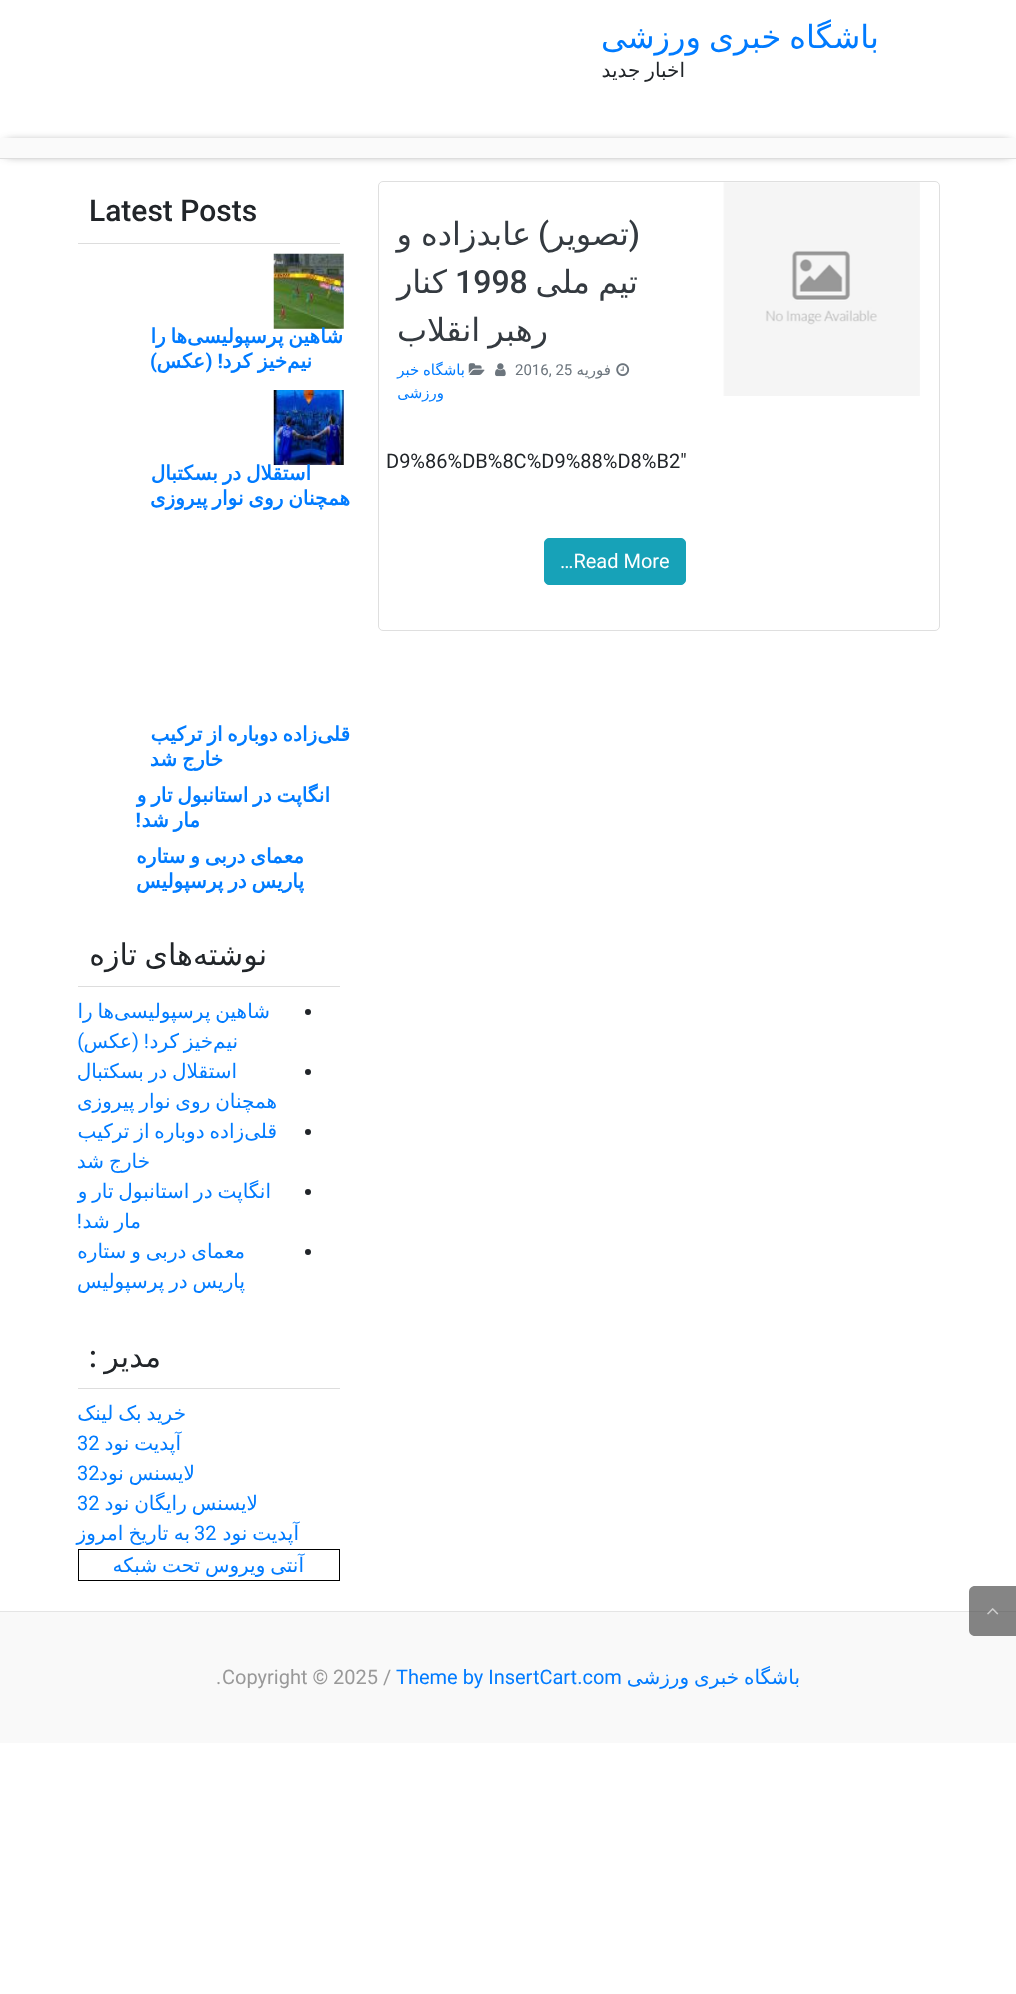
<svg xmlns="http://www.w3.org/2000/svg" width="1016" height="1994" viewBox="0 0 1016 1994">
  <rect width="100%" height="100%" fill="rgb(255,255,255)"/>
  <rect x="0" y="1612" width="1016" height="131" fill="rgb(249,249,249)"/>
  <rect x="0" y="1611" width="1016" height="1" fill="rgb(229,229,229)"/>
  <path d="M975 1586H1016V1636H975C971.5 1636 969 1633.5 969 1630V1592C969 1588.5 971.5 1586 975 1586Z" fill="rgba(51,51,51,0.6)"/>
  <image x="987" y="1608" width="12" height="7" href="pic1.png"/>
  <text x="879" y="48" word-spacing="-2" font-family="DejaVu Sans" font-size="32" direction="rtl" fill="rgb(0,123,255)">باشگاه خبری ورزشی</text>
  <text x="685" y="77" word-spacing="-1.5" font-family="DejaVu Sans" font-size="20" direction="rtl" fill="rgb(33,37,41)">اخبار جدید</text>
  <rect x="6" y="144" width="1004" height="9" fill="rgb(43,43,43)" filter="blur(5.5px)"/>
  <rect x="0" y="138" width="1016" height="20" fill="rgb(250,250,250)"/>
  <rect x="0" y="158" width="1016" height="1" fill="rgb(221,221,221)"/>
  <rect x="378.5" y="181.5" width="561" height="449" rx="4.5" fill="none" stroke="rgb(223,223,223)"/>
  <image x="723" y="182" width="197" height="214" href="pic2.png"/>
  <g font-family="Roboto" font-size="32" font-weight="500" direction="rtl" fill="rgb(52,58,64)">
    <text x="640" y="245">(</text>
    <text x="549" y="245">)</text>
  </g>
  <g font-family="DejaVu Sans" font-size="32" direction="rtl" fill="rgb(52,58,64)">
    <text x="629" y="245">تصویر</text>
    <text x="531" y="245" word-spacing="-1">عابدزاده و</text>
    <text x="638" y="293" word-spacing="-2">تیم ملی</text>
  </g>
  <text x="455" y="293" font-family="Roboto" font-size="32" font-weight="500" fill="rgb(52,58,64)">1998</text>
  <g font-family="DejaVu Sans" font-size="32" direction="rtl" fill="rgb(52,58,64)">
    <text x="447" y="293">کنار</text>
    <text x="548" y="341" word-spacing="-2">رهبر انقلاب</text>
  </g>
  <image x="616" y="363" width="14" height="14" href="pic3.png"/>
  <text x="611" y="375" font-family="DejaVu Sans" font-size="15" direction="rtl" fill="rgb(108,117,125)">فوریه</text>
  <text x="515" y="375" font-family="Roboto" font-size="15" fill="rgb(108,117,125)">2016, 25</text>
  <image x="495" y="363" width="11" height="14" href="pic4.png"/>
  <image x="468" y="363" width="17" height="12" href="pic5.png"/>
  <g font-family="DejaVu Sans" font-size="15" direction="rtl" fill="rgb(0,123,255)">
    <text x="465" y="375" word-spacing="-1">باشگاه خبر</text>
    <text x="444" y="398">ورزشی</text>
  </g>
  <text x="386" y="468" font-family="Roboto" font-size="20" fill="rgb(33,37,41)">D9%86%DB%8C%D9%88%D8%B2″</text>
  <rect x="544.5" y="538.5" width="141" height="46" rx="4.5" fill="rgb(23,162,184)" stroke="rgb(23,162,184)"/>
  <text x="560" y="568" font-family="Roboto" font-size="20" fill="rgb(255,255,255)">…Read More</text>
  <rect x="78" y="243" width="262" height="1" fill="rgb(221,221,221)"/>
  <text x="89" y="221" font-family="Roboto" font-size="30" font-weight="500" fill="rgb(33,37,41)">Latest Posts</text>
  <image x="273" y="253" width="71" height="76" href="pic6.png"/>
  <g font-family="DejaVu Sans" font-size="20" font-weight="bold" direction="rtl" fill="rgb(0,123,255)">
    <text x="343" y="343" word-spacing="-1.5">شاهین پرسپولیسی‌ها را</text>
    <text x="312" y="368">نیم‌خیز</text>
    <text x="252" y="368">کرد</text>
  </g>
  <text x="223" y="368" font-family="Roboto" font-size="20" font-weight="bold" direction="rtl" fill="rgb(0,123,255)">! (</text>
  <text x="205" y="368" font-family="DejaVu Sans" font-size="20" font-weight="bold" direction="rtl" fill="rgb(0,123,255)">عکس</text>
  <text x="157" y="368" font-family="Roboto" font-size="20" font-weight="bold" direction="rtl" fill="rgb(0,123,255)">)</text>
  <image x="273" y="390" width="71" height="75" href="pic7.png"/>
  <g font-family="DejaVu Sans" font-size="20" font-weight="bold" direction="rtl" fill="rgb(0,123,255)">
    <text x="311" y="480" word-spacing="-1.5">استقلال در بسکتبال</text>
    <text x="350" y="505" word-spacing="-1.5">همچنان روی نوار پیروزی</text>
    <text x="350" y="741" word-spacing="-1.5">قلی‌زاده دوباره از ترکیب</text>
    <text x="223" y="766" word-spacing="-1.5">خارج شد</text>
    <text x="330" y="802" word-spacing="-1.5">انگاپت در استانبول تار و</text>
    <text x="200" y="827" word-spacing="-1.5">مار شد</text>
  </g>
  <text x="141" y="827" font-family="Roboto" font-size="20" font-weight="bold" direction="rtl" fill="rgb(0,123,255)">!</text>
  <g font-family="DejaVu Sans" font-size="20" font-weight="bold" direction="rtl" fill="rgb(0,123,255)">
    <text>
      <tspan x="304" y="863" word-spacing="-1.5">معمای دربی و ستاره</tspan>
      <tspan x="304" y="888" word-spacing="-1.5">پاریس در پرسپولیس</tspan>
    </text>
  </g>
  <rect x="78" y="986" width="262" height="1" fill="rgb(221,221,221)"/>
  <text x="267" y="965" word-spacing="-2" font-family="DejaVu Sans" font-size="30" direction="rtl" fill="rgb(33,37,41)">نوشته‌های تازه</text>
  <circle cx="308" cy="1012" r="3" fill="rgb(33,37,41)"/>
  <g font-family="DejaVu Sans" font-size="20" direction="rtl" fill="rgb(0,123,255)">
    <text x="270" y="1018" word-spacing="-1.5">شاهین پرسپولیسی‌ها را</text>
    <text x="238" y="1048">نیم‌خیز</text>
    <text x="179" y="1048">کرد</text>
  </g>
  <text x="149" y="1048" font-family="Roboto" font-size="20" direction="rtl" fill="rgb(0,123,255)">! (</text>
  <text x="132" y="1048" font-family="DejaVu Sans" font-size="20" direction="rtl" fill="rgb(0,123,255)">عکس</text>
  <text x="84" y="1048" font-family="Roboto" font-size="20" direction="rtl" fill="rgb(0,123,255)">)</text>
  <circle cx="308" cy="1072" r="3" fill="rgb(33,37,41)"/>
  <g font-family="DejaVu Sans" font-size="20" direction="rtl" fill="rgb(0,123,255)">
    <text x="237" y="1078" word-spacing="-1.5">استقلال در بسکتبال</text>
    <text x="277" y="1108" word-spacing="-1.5">همچنان روی نوار پیروزی</text>
  </g>
  <circle cx="308" cy="1132" r="3" fill="rgb(33,37,41)"/>
  <g font-family="DejaVu Sans" font-size="20" direction="rtl" fill="rgb(0,123,255)">
    <text x="277" y="1138" word-spacing="-1.5">قلی‌زاده دوباره از ترکیب</text>
    <text x="150" y="1168" word-spacing="-1.5">خارج شد</text>
  </g>
  <circle cx="308" cy="1192" r="3" fill="rgb(33,37,41)"/>
  <g font-family="DejaVu Sans" font-size="20" direction="rtl" fill="rgb(0,123,255)">
    <text x="271" y="1198" word-spacing="-1.5">انگاپت در استانبول تار و</text>
    <text x="141" y="1228" word-spacing="-1.5">مار شد</text>
  </g>
  <text x="82" y="1228" font-family="Roboto" font-size="20" direction="rtl" fill="rgb(0,123,255)">!</text>
  <circle cx="308" cy="1252" r="3" fill="rgb(33,37,41)"/>
  <g font-family="DejaVu Sans" font-size="20" direction="rtl" fill="rgb(0,123,255)">
    <text>
      <tspan x="245" y="1258" word-spacing="-1.5">معمای دربی و ستاره</tspan>
      <tspan x="245" y="1288" word-spacing="-1.5">پاریس در پرسپولیس</tspan>
    </text>
  </g>
  <rect x="78" y="1388" width="262" height="1" fill="rgb(221,221,221)"/>
  <text x="161" y="1367" font-family="DejaVu Sans" font-size="30" direction="rtl" fill="rgb(33,37,41)">مدیر</text>
  <text x="97" y="1367" font-family="Roboto" font-size="30" font-weight="500" direction="rtl" fill="rgb(33,37,41)">:</text>
  <g font-family="DejaVu Sans" font-size="20" direction="rtl" fill="rgb(0,123,255)">
    <text x="186" y="1420" word-spacing="-1.5">خرید بک لینک</text>
    <text x="181" y="1450" word-spacing="-1.5">آپدیت نود</text>
  </g>
  <text x="77" y="1450" font-family="Roboto" font-size="20" fill="rgb(0,123,255)">32</text>
  <text x="195" y="1480" word-spacing="-1.5" font-family="DejaVu Sans" font-size="20" direction="rtl" fill="rgb(0,123,255)">لایسنس نود</text>
  <text x="77" y="1480" font-family="Roboto" font-size="20" fill="rgb(0,123,255)">32</text>
  <text x="258" y="1510" word-spacing="-1.5" font-family="DejaVu Sans" font-size="20" direction="rtl" fill="rgb(0,123,255)">لایسنس رایگان نود</text>
  <text x="77" y="1510" font-family="Roboto" font-size="20" fill="rgb(0,123,255)">32</text>
  <text x="299" y="1540" word-spacing="-1.5" font-family="DejaVu Sans" font-size="20" direction="rtl" fill="rgb(0,123,255)">آپدیت نود</text>
  <text x="194" y="1540" font-family="Roboto" font-size="20" fill="rgb(0,123,255)">32</text>
  <text x="190" y="1540" word-spacing="-1" font-family="DejaVu Sans" font-size="20" direction="rtl" fill="rgb(0,123,255)">به تاریخ امروز</text>
  <rect x="78.5" y="1549.5" width="261" height="31" fill="none" stroke="rgb(0,0,0)"/>
  <g font-family="DejaVu Sans" font-size="20" direction="rtl" fill="rgb(0,123,255)">
    <text x="304" y="1572" word-spacing="-1.5">آنتی ویروس تحت شبکه</text>
    <text x="800" y="1684" word-spacing="-1.5">باشگاه خبری ورزشی</text>
  </g>
  <text x="396" y="1684" font-family="Roboto" font-size="20" fill="rgb(0,123,255)">Theme by InsertCart.com</text>
  <g font-family="Roboto" font-size="20" fill="rgb(153,153,153)">
    <text x="222" y="1684">Copyright © 2025 /</text>
    <text x="216" y="1684">.</text>
  </g>
</svg>
